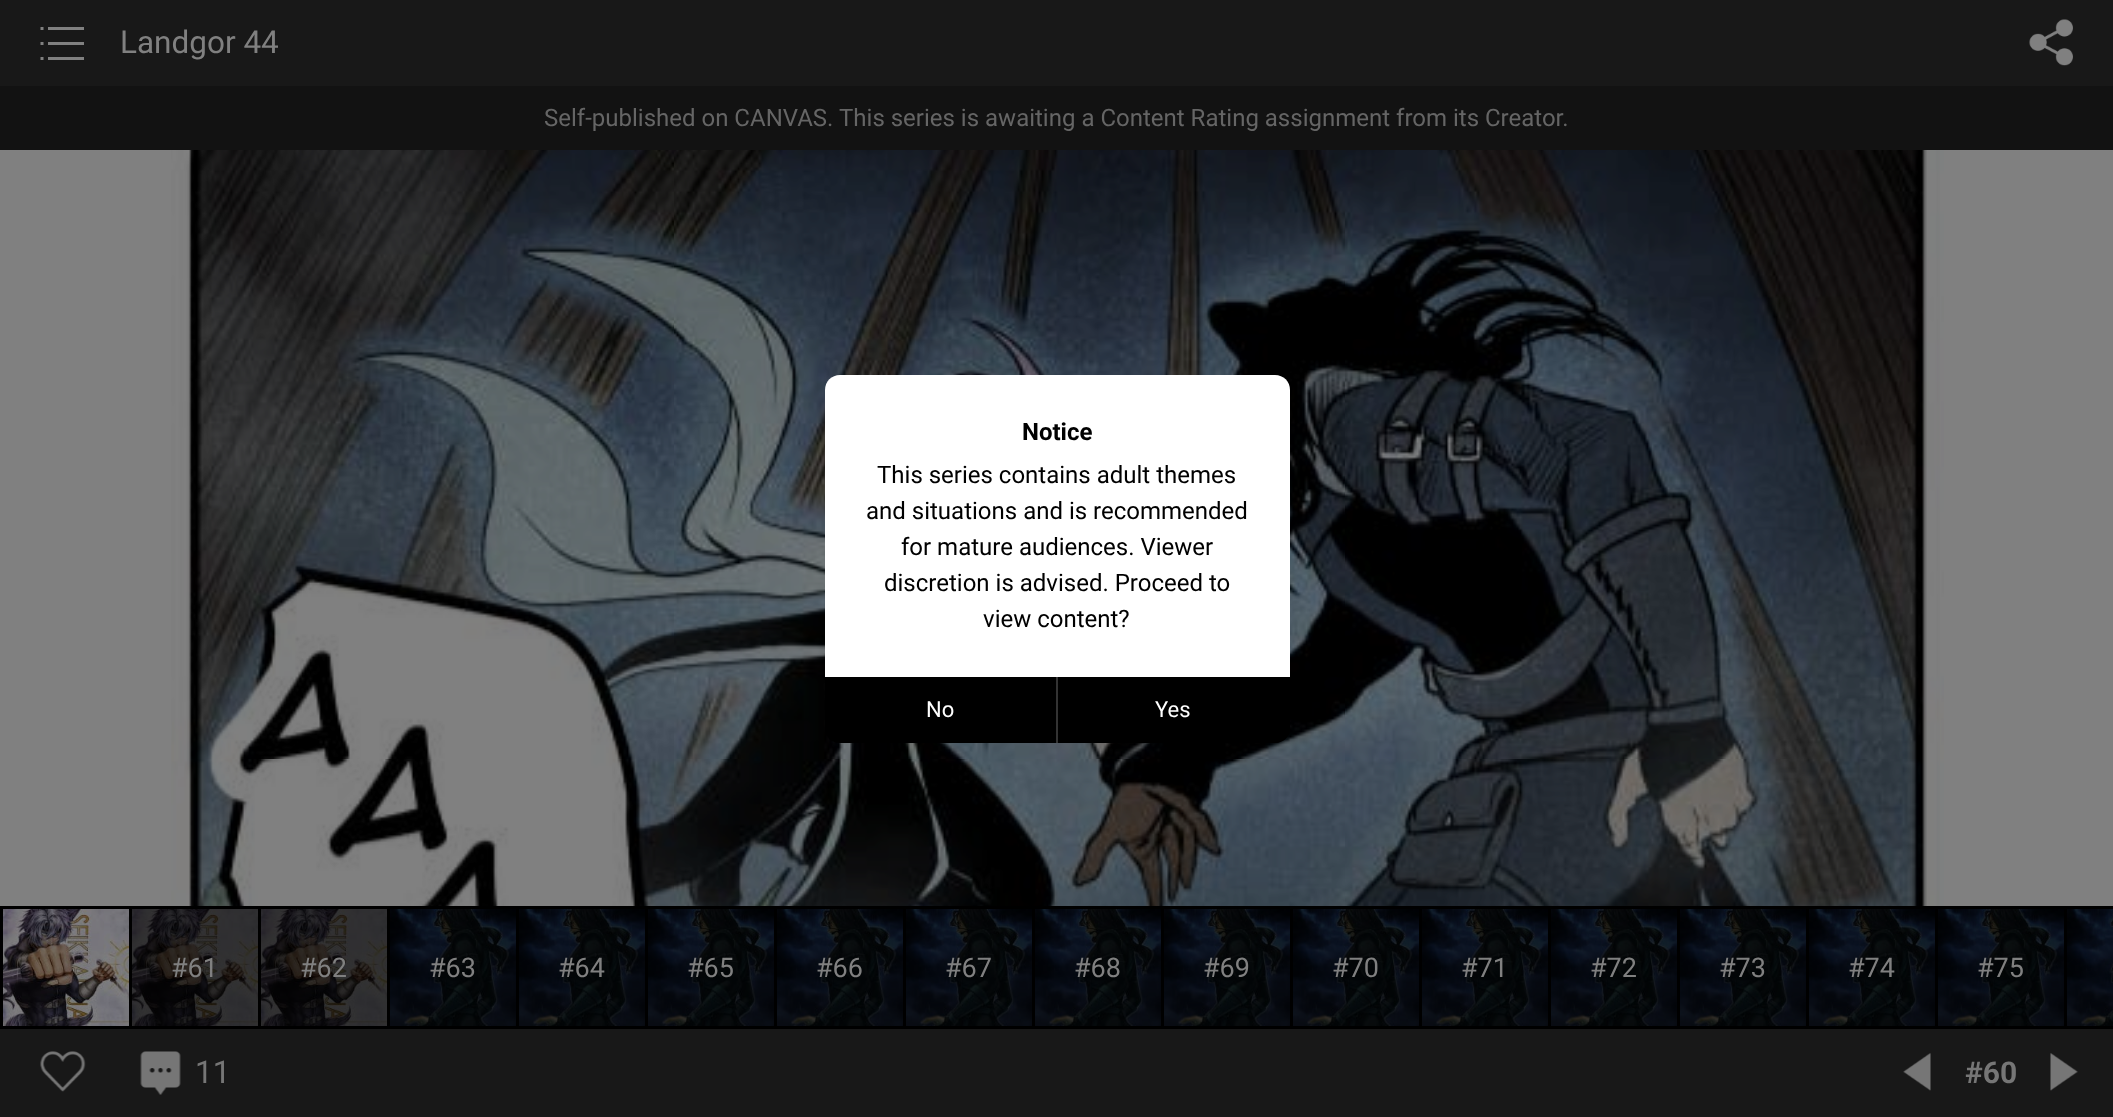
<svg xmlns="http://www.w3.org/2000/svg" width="2113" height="1117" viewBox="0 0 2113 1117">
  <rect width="100%" height="100%" fill="rgb(128,128,128)"/>
  <rect x="0" y="0" width="2113" height="86" fill="rgb(24,24,24)"/>
  <image x="40" y="27" width="44" height="33" href="pic1.png"/>
  <text x="120" y="53" font-family="Roboto" font-size="31.5" fill="rgb(128,128,128)">Landgor 44</text>
  <image x="2029" y="19" width="44" height="47" href="pic2.png"/>
  <rect x="0" y="86" width="2113" height="64" fill="rgb(18,18,18)"/>
  <g font-family="Roboto" font-size="24" fill="rgb(101,101,101)">
    <text x="544" y="126">Self-published on CANVAS.</text>
    <text x="839" y="126">This series is awaiting a Content Rating assignment from its Creator.</text>
  </g>
  <image x="171" y="150" width="1773" height="756" href="pic3.png"/>
  <rect x="0" y="1029" width="2113" height="88" fill="rgb(24,24,24)"/>
  <rect x="0" y="906" width="2113" height="123" fill="rgb(0,0,0)"/>
  <image x="3" y="909" width="126" height="117" href="pic4.png"/>
  <image x="132" y="909" width="126" height="117" href="pic5.png"/>
  <text x="171" y="977" font-family="Roboto" font-size="27" fill="rgb(128,128,128)">#61</text>
  <image x="261" y="909" width="126" height="117" href="pic5.png"/>
  <text x="300" y="977" font-family="Roboto" font-size="27" fill="rgb(128,128,128)">#62</text>
  <image x="390" y="909" width="126" height="117" href="pic6.png"/>
  <text x="429" y="977" font-family="Roboto" font-size="27" fill="rgb(128,128,128)">#63</text>
  <image x="519" y="909" width="126" height="117" href="pic7.png"/>
  <text x="558" y="977" font-family="Roboto" font-size="27" fill="rgb(128,128,128)">#64</text>
  <image x="648" y="909" width="126" height="117" href="pic7.png"/>
  <text x="687" y="977" font-family="Roboto" font-size="27" fill="rgb(128,128,128)">#65</text>
  <image x="777" y="909" width="126" height="117" href="pic7.png"/>
  <text x="816" y="977" font-family="Roboto" font-size="27" fill="rgb(128,128,128)">#66</text>
  <image x="906" y="909" width="126" height="117" href="pic6.png"/>
  <text x="945" y="977" font-family="Roboto" font-size="27" fill="rgb(128,128,128)">#67</text>
  <image x="1035" y="909" width="126" height="117" href="pic7.png"/>
  <text x="1074" y="977" font-family="Roboto" font-size="27" fill="rgb(128,128,128)">#68</text>
  <image x="1164" y="909" width="126" height="117" href="pic7.png"/>
  <text x="1203" y="977" font-family="Roboto" font-size="27" fill="rgb(128,128,128)">#69</text>
  <image x="1293" y="909" width="126" height="117" href="pic7.png"/>
  <text x="1332" y="977" font-family="Roboto" font-size="27" fill="rgb(128,128,128)">#70</text>
  <image x="1422" y="909" width="126" height="117" href="pic6.png"/>
  <text x="1461" y="977" font-family="Roboto" font-size="27" fill="rgb(128,128,128)">#71</text>
  <image x="1551" y="909" width="126" height="117" href="pic7.png"/>
  <text x="1590" y="977" font-family="Roboto" font-size="27" fill="rgb(128,128,128)">#72</text>
  <image x="1680" y="909" width="126" height="117" href="pic7.png"/>
  <text x="1719" y="977" font-family="Roboto" font-size="27" fill="rgb(128,128,128)">#73</text>
  <image x="1809" y="909" width="126" height="117" href="pic6.png"/>
  <text x="1848" y="977" font-family="Roboto" font-size="27" fill="rgb(128,128,128)">#74</text>
  <image x="1938" y="909" width="126" height="117" href="pic6.png"/>
  <text x="1977" y="977" font-family="Roboto" font-size="27" fill="rgb(128,128,128)">#75</text>
  <image x="2067" y="909" width="46" height="117" href="pic8.png"/>
  <image x="40" y="1051" width="46" height="41" href="pic9.png"/>
  <image x="140" y="1051" width="41" height="44" href="pic10.png"/>
  <text x="195" y="1083" font-family="Roboto" font-size="31.5" fill="rgb(118,118,118)">11</text>
  <image x="1903" y="1053" width="28" height="38" href="pic11.png"/>
  <text x="1965" y="1083" font-family="Roboto" font-size="30" font-weight="bold" fill="rgb(118,118,118)">#60</text>
  <image x="2050" y="1053" width="28" height="38" href="pic12.png"/>
  <path d="M840 375H1275C1283.5 375 1290 381.5 1290 390V677H825V390C825 381.5 831.5 375 840 375Z" fill="rgb(255,255,255)"/>
  <text x="1022" y="440" font-family="Roboto" font-size="24" font-weight="bold" fill="rgb(0,0,0)">Notice</text>
  <g font-family="Roboto" font-size="24" fill="rgb(0,0,0)">
    <text x="877" y="483">This series contains adult themes</text>
    <text x="866" y="519">and situations and is recommended</text>
    <text x="901" y="555">for mature audiences. Viewer</text>
    <text x="884" y="591">discretion is advised. Proceed to</text>
    <text x="983" y="627">view content?</text>
  </g>
  <path d="M825 677H1290V728C1290 736.5 1283.5 743 1275 743H840C831.5 743 825 736.5 825 728Z" fill="rgb(0,0,0)"/>
  <text x="926" y="717" font-family="Roboto" font-size="22" fill="rgb(255,255,255)">No</text>
  <rect x="1056" y="677" width="2" height="66" fill="rgb(51,51,51)"/>
  <text x="1155" y="717" font-family="Roboto" font-size="22" fill="rgb(255,255,255)">Yes</text>
</svg>
